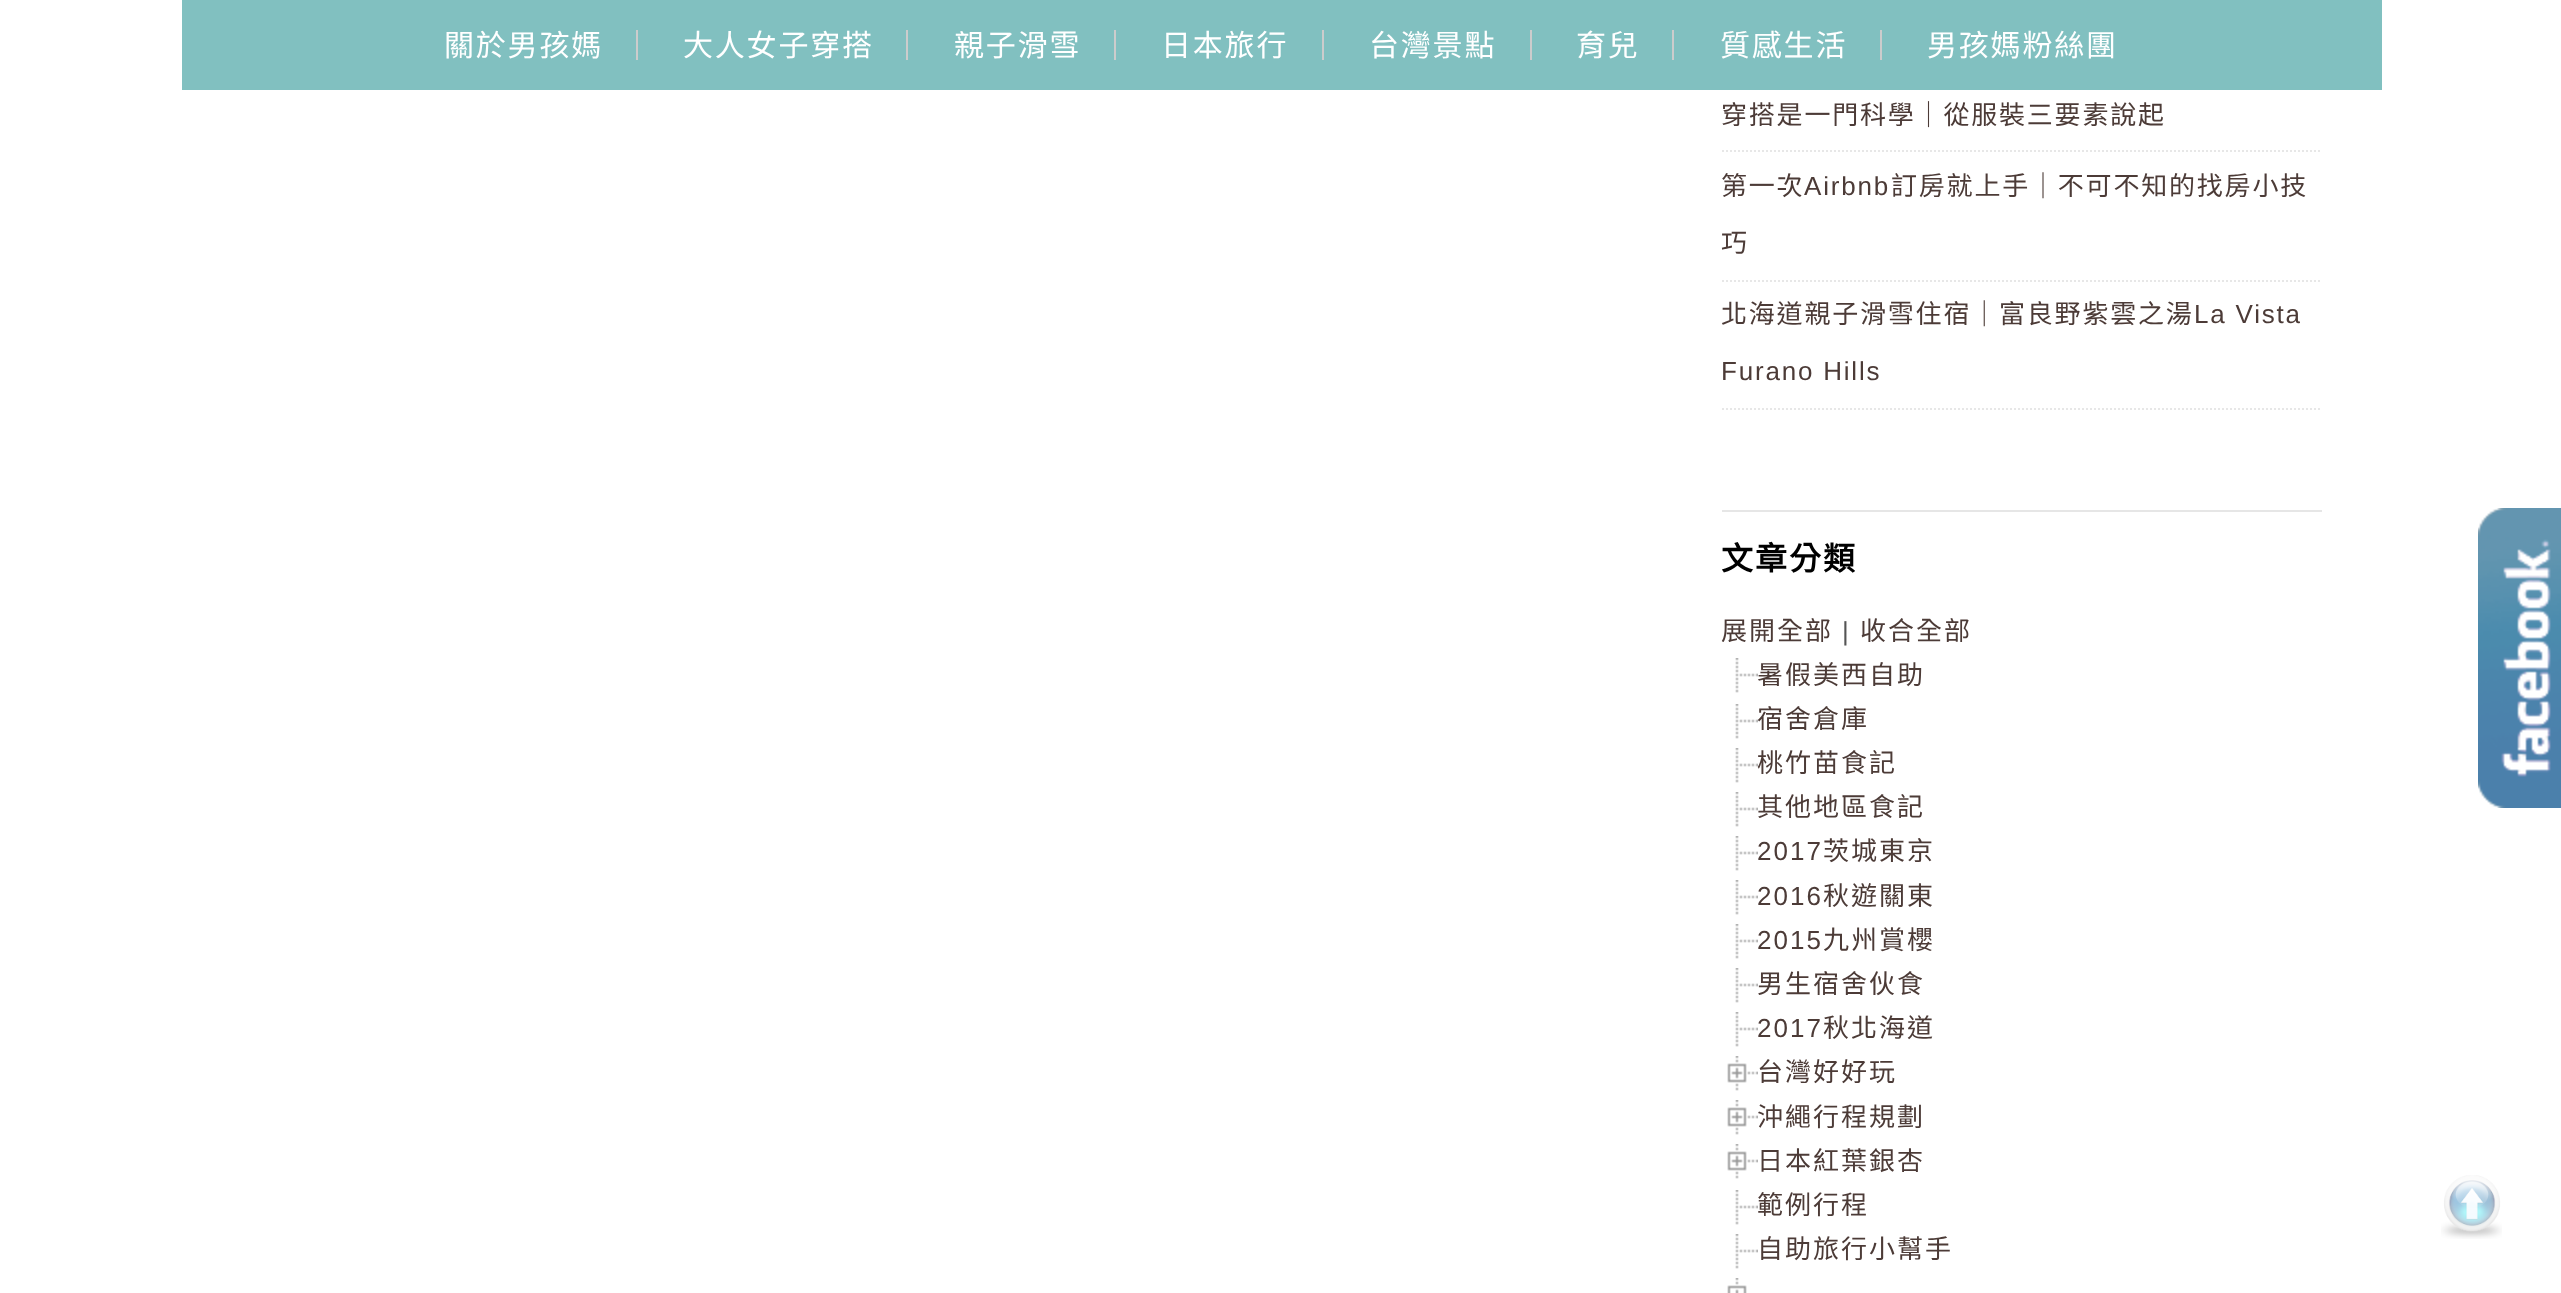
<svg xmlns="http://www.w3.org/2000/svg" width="2561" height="1293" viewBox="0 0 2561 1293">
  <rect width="100%" height="100%" fill="rgb(255,255,255)"/>
  <rect x="182" y="0" width="2200" height="90" fill="rgb(129,192,192)"/>
  <text x="444" y="56" font-family="Noto Sans CJK TC" font-size="30" letter-spacing="1.8" fill="rgb(255,255,255)">關於男孩媽</text>
  <rect x="636" y="30" width="2" height="30" fill="rgb(204,204,204)"/>
  <text x="683" y="56" font-family="Noto Sans CJK TC" font-size="30" letter-spacing="1.8" fill="rgb(255,255,255)">大人女子穿搭</text>
  <rect x="906" y="30" width="2" height="30" fill="rgb(204,204,204)"/>
  <text x="954" y="56" font-family="Noto Sans CJK TC" font-size="30" letter-spacing="1.8" fill="rgb(255,255,255)">親子滑雪</text>
  <rect x="1114" y="30" width="2" height="30" fill="rgb(204,204,204)"/>
  <text x="1161" y="56" font-family="Noto Sans CJK TC" font-size="30" letter-spacing="1.8" fill="rgb(255,255,255)">日本旅行</text>
  <rect x="1322" y="30" width="2" height="30" fill="rgb(204,204,204)"/>
  <text x="1369" y="56" font-family="Noto Sans CJK TC" font-size="30" letter-spacing="1.8" fill="rgb(255,255,255)">台灣景點</text>
  <rect x="1530" y="30" width="2" height="30" fill="rgb(204,204,204)"/>
  <text x="1576" y="56" font-family="Noto Sans CJK TC" font-size="30" letter-spacing="1.8" fill="rgb(255,255,255)">育兒</text>
  <rect x="1672" y="30" width="2" height="30" fill="rgb(204,204,204)"/>
  <text x="1720" y="56" font-family="Noto Sans CJK TC" font-size="30" letter-spacing="1.8" fill="rgb(255,255,255)">質感生活</text>
  <rect x="1880" y="30" width="2" height="30" fill="rgb(204,204,204)"/>
  <text x="1927" y="56" font-family="Noto Sans CJK TC" font-size="30" letter-spacing="1.8" fill="rgb(255,255,255)">男孩媽粉絲團</text>
  <path d="M1722 151H2322" fill="none" stroke="rgb(231,231,231)" stroke-width="2" stroke-dasharray="2 2"/>
  <text x="1721" y="124" font-family="Noto Sans CJK TC" font-size="26" letter-spacing="1.8" fill="rgb(76,59,55)">穿搭是一門科學｜從服裝三要素說起</text>
  <path d="M1722 281H2322" fill="none" stroke="rgb(231,231,231)" stroke-width="2" stroke-dasharray="2 2"/>
  <text x="1721" y="195" font-family="Noto Sans CJK TC" font-size="26" letter-spacing="1.8" fill="rgb(76,59,55)">第一次</text>
  <text x="1804" y="195" font-family="Liberation Sans" font-size="26" letter-spacing="1.8" fill="rgb(76,59,55)">Airbnb</text>
  <g font-family="Noto Sans CJK TC" font-size="26" letter-spacing="1.8" fill="rgb(76,59,55)">
    <text x="1891" y="195">訂房就上手｜不可不知的找房小技</text>
    <text x="1721" y="252">巧</text>
  </g>
  <path d="M1722 409H2322" fill="none" stroke="rgb(231,231,231)" stroke-width="2" stroke-dasharray="2 2"/>
  <text x="1721" y="323" font-family="Noto Sans CJK TC" font-size="26" letter-spacing="1.8" fill="rgb(76,59,55)">北海道親子滑雪住宿｜富良野紫雲之湯</text>
  <g font-family="Liberation Sans" font-size="26" letter-spacing="1.8" fill="rgb(76,59,55)">
    <text x="2194" y="323">La Vista</text>
    <text x="1721" y="380">Furano Hills</text>
  </g>
  <rect x="1722" y="510" width="600" height="2" fill="rgb(230,230,230)"/>
  <text x="1721" y="570" font-family="Noto Sans CJK TC" font-size="32" font-weight="bold" letter-spacing="2" fill="rgb(0,0,0)">文章分類</text>
  <text x="1721" y="640" font-family="Noto Sans CJK TC" font-size="26" letter-spacing="2" fill="rgb(76,59,55)">展開全部</text>
  <text x="1842" y="640" font-family="Liberation Sans" font-size="26" letter-spacing="2" fill="rgb(85,85,85)">|</text>
  <text x="1860" y="640" font-family="Noto Sans CJK TC" font-size="26" letter-spacing="2" fill="rgb(76,59,55)">收合全部</text>
  <image x="1735" y="658" width="23" height="35" href="pic1.png"/>
  <text x="1757" y="684" font-family="Noto Sans CJK TC" font-size="26" letter-spacing="2" fill="rgb(76,59,55)">暑假美西自助</text>
  <image x="1735" y="704" width="23" height="35" href="pic1.png"/>
  <text x="1757" y="728" font-family="Noto Sans CJK TC" font-size="26" letter-spacing="2" fill="rgb(76,59,55)">宿舍倉庫</text>
  <image x="1735" y="748" width="23" height="35" href="pic1.png"/>
  <text x="1757" y="772" font-family="Noto Sans CJK TC" font-size="26" letter-spacing="2" fill="rgb(76,59,55)">桃竹苗食記</text>
  <image x="1735" y="792" width="23" height="35" href="pic1.png"/>
  <text x="1757" y="816" font-family="Noto Sans CJK TC" font-size="26" letter-spacing="2" fill="rgb(76,59,55)">其他地區食記</text>
  <image x="1735" y="836" width="23" height="35" href="pic1.png"/>
  <text x="1757" y="860" font-family="Liberation Sans" font-size="26" letter-spacing="2" fill="rgb(76,59,55)">2017</text>
  <text x="1823" y="860" font-family="Noto Sans CJK TC" font-size="26" letter-spacing="2" fill="rgb(76,59,55)">茨城東京</text>
  <image x="1735" y="880" width="23" height="35" href="pic1.png"/>
  <text x="1757" y="905" font-family="Liberation Sans" font-size="26" letter-spacing="2" fill="rgb(76,59,55)">2016</text>
  <text x="1823" y="905" font-family="Noto Sans CJK TC" font-size="26" letter-spacing="2" fill="rgb(76,59,55)">秋遊關東</text>
  <image x="1735" y="924" width="23" height="35" href="pic1.png"/>
  <text x="1757" y="949" font-family="Liberation Sans" font-size="26" letter-spacing="2" fill="rgb(76,59,55)">2015</text>
  <text x="1823" y="949" font-family="Noto Sans CJK TC" font-size="26" letter-spacing="2" fill="rgb(76,59,55)">九州賞櫻</text>
  <image x="1735" y="968" width="23" height="35" href="pic1.png"/>
  <text x="1757" y="993" font-family="Noto Sans CJK TC" font-size="26" letter-spacing="2" fill="rgb(76,59,55)">男生宿舍伙食</text>
  <image x="1735" y="1012" width="23" height="35" href="pic1.png"/>
  <text x="1757" y="1037" font-family="Liberation Sans" font-size="26" letter-spacing="2" fill="rgb(76,59,55)">2017</text>
  <text x="1823" y="1037" font-family="Noto Sans CJK TC" font-size="26" letter-spacing="2" fill="rgb(76,59,55)">秋北海道</text>
  <image x="1727" y="1056" width="31" height="35" href="pic2.png"/>
  <text x="1757" y="1081" font-family="Noto Sans CJK TC" font-size="26" letter-spacing="2" fill="rgb(76,59,55)">台灣好好玩</text>
  <image x="1727" y="1100" width="31" height="35" href="pic2.png"/>
  <text x="1757" y="1126" font-family="Noto Sans CJK TC" font-size="26" letter-spacing="2" fill="rgb(76,59,55)">沖繩行程規劃</text>
  <image x="1727" y="1144" width="31" height="35" href="pic2.png"/>
  <text x="1757" y="1170" font-family="Noto Sans CJK TC" font-size="26" letter-spacing="2" fill="rgb(76,59,55)">日本紅葉銀杏</text>
  <image x="1735" y="1190" width="23" height="35" href="pic1.png"/>
  <text x="1757" y="1214" font-family="Noto Sans CJK TC" font-size="26" letter-spacing="2" fill="rgb(76,59,55)">範例行程</text>
  <image x="1735" y="1234" width="23" height="35" href="pic1.png"/>
  <text x="1757" y="1258" font-family="Noto Sans CJK TC" font-size="26" letter-spacing="2" fill="rgb(76,59,55)">自助旅行小幫手</text>
  <image x="1727" y="1278" width="20" height="15" href="pic3.png"/>
  <image x="2478" y="508" width="83" height="300" href="pic4.png"/>
  <image x="2441" y="1175" width="61" height="64" href="pic5.png"/>
</svg>
